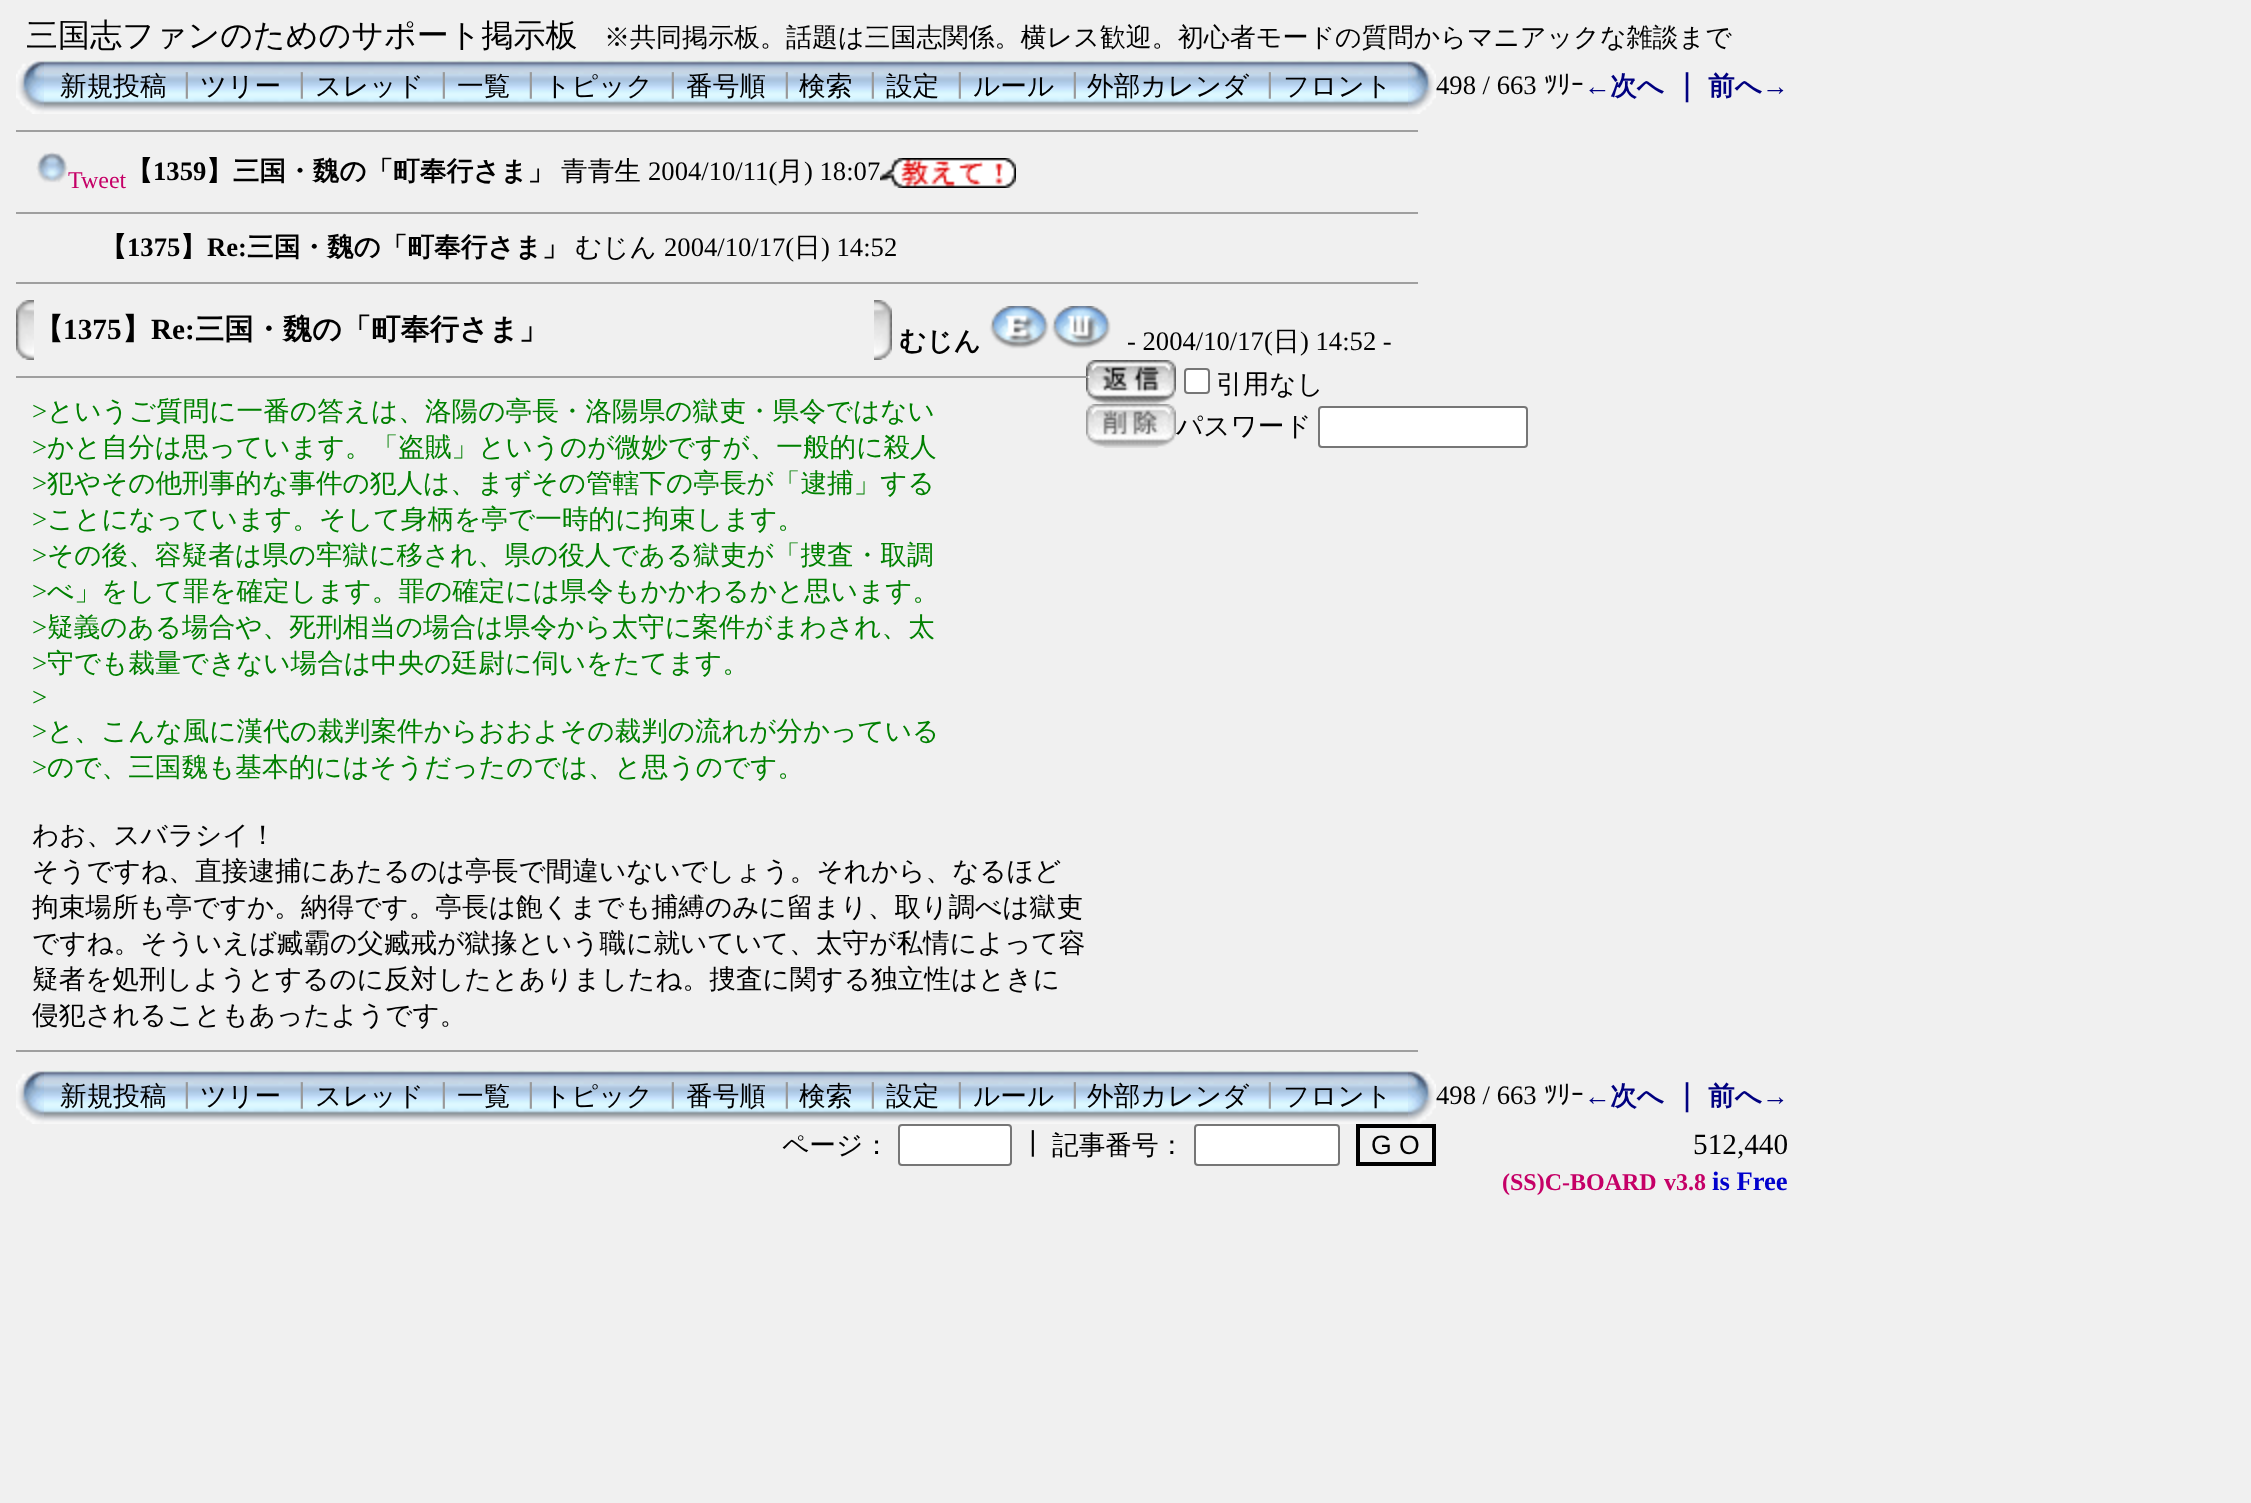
<svg xmlns="http://www.w3.org/2000/svg" width="2251" height="1503" viewBox="0 0 2251 1503">
  <rect width="100%" height="100%" fill="rgb(240,240,240)"/>
  <text x="26" y="46" font-family="WenQuanYi Zen Hei" font-size="32" font-weight="500" fill="rgb(0,0,0)">三国志ファンのためのサポート掲示板</text>
  <text x="604" y="46" font-family="WenQuanYi Zen Hei" font-size="26" font-weight="500" fill="rgb(0,0,0)">※共同掲示板。話題は三国志関係。横レス歓迎。初心者モードの質問からマニアックな雑談まで</text>
  <image x="16" y="60" width="28" height="54" href="pic1.png"/>
  <image x="44" y="60" width="1364" height="54" href="pic2.png"/>
  <text x="60" y="95" font-family="WenQuanYi Zen Hei" font-size="26.65" font-weight="500" fill="rgb(0,0,0)">新規投稿</text>
  <text x="173" y="95" font-family="WenQuanYi Zen Hei" font-size="26.65" font-weight="500" fill="rgb(153,153,153)">┃</text>
  <text x="200" y="95" font-family="WenQuanYi Zen Hei" font-size="26.65" font-weight="500" fill="rgb(0,0,0)">ツリー</text>
  <text x="288" y="95" font-family="WenQuanYi Zen Hei" font-size="26.65" font-weight="500" fill="rgb(153,153,153)">┃</text>
  <text x="315" y="95" font-family="WenQuanYi Zen Hei" font-size="26.65" font-weight="500" fill="rgb(0,0,0)">スレッド</text>
  <text x="430" y="95" font-family="WenQuanYi Zen Hei" font-size="26.65" font-weight="500" fill="rgb(153,153,153)">┃</text>
  <text x="457" y="95" font-family="WenQuanYi Zen Hei" font-size="26.65" font-weight="500" fill="rgb(0,0,0)">一覧</text>
  <text x="517" y="95" font-family="WenQuanYi Zen Hei" font-size="26.65" font-weight="500" fill="rgb(153,153,153)">┃</text>
  <text x="544" y="95" font-family="WenQuanYi Zen Hei" font-size="26.65" font-weight="500" fill="rgb(0,0,0)">トピック</text>
  <text x="659" y="95" font-family="WenQuanYi Zen Hei" font-size="26.65" font-weight="500" fill="rgb(153,153,153)">┃</text>
  <text x="686" y="95" font-family="WenQuanYi Zen Hei" font-size="26.65" font-weight="500" fill="rgb(0,0,0)">番号順</text>
  <text x="773" y="95" font-family="WenQuanYi Zen Hei" font-size="26.65" font-weight="500" fill="rgb(153,153,153)">┃</text>
  <text x="799" y="95" font-family="WenQuanYi Zen Hei" font-size="26.65" font-weight="500" fill="rgb(0,0,0)">検索</text>
  <text x="859" y="95" font-family="WenQuanYi Zen Hei" font-size="26.65" font-weight="500" fill="rgb(153,153,153)">┃</text>
  <text x="886" y="95" font-family="WenQuanYi Zen Hei" font-size="26.65" font-weight="500" fill="rgb(0,0,0)">設定</text>
  <text x="946" y="95" font-family="WenQuanYi Zen Hei" font-size="26.65" font-weight="500" fill="rgb(153,153,153)">┃</text>
  <text x="973" y="95" font-family="WenQuanYi Zen Hei" font-size="26.65" font-weight="500" fill="rgb(0,0,0)">ルール</text>
  <text x="1061" y="95" font-family="WenQuanYi Zen Hei" font-size="26.65" font-weight="500" fill="rgb(153,153,153)">┃</text>
  <text x="1087" y="95" font-family="WenQuanYi Zen Hei" font-size="26.65" font-weight="500" fill="rgb(0,0,0)">外部カレンダ</text>
  <text x="1256" y="95" font-family="WenQuanYi Zen Hei" font-size="26.65" font-weight="500" fill="rgb(153,153,153)">┃</text>
  <text x="1283" y="95" font-family="WenQuanYi Zen Hei" font-size="26.65" font-weight="500" fill="rgb(0,0,0)">フロント</text>
  <image x="1408" y="60" width="28" height="54" href="pic3.png"/>
  <text x="1436" y="94" font-family="Liberation Serif" font-size="26.65" fill="rgb(0,0,0)">498 / 663</text>
  <text x="1544" y="94" font-family="IPAPGothic" font-size="26.65" fill="rgb(0,0,0)">ﾂﾘｰ</text>
  <text x="1584" y="95" font-family="Liberation Serif" font-size="26.65" font-weight="bold" fill="rgb(0,0,128)">←</text>
  <text x="1610" y="95" font-family="WenQuanYi Zen Hei" font-size="26.65" font-weight="bold" fill="rgb(0,0,128)">次へ</text>
  <text x="1672" y="95" font-family="WenQuanYi Zen Hei" font-size="29.25" font-weight="bold" fill="rgb(0,0,128)">｜</text>
  <text x="1708" y="95" font-family="WenQuanYi Zen Hei" font-size="26.65" font-weight="bold" fill="rgb(0,0,128)">前へ</text>
  <text x="1762" y="95" font-family="Liberation Serif" font-size="26.65" font-weight="bold" fill="rgb(0,0,128)">→</text>
  <rect x="16" y="130" width="1404" height="2" fill="rgb(159,159,159)"/>
  <rect x="1418" y="130" width="2" height="2" fill="rgb(238,238,238)"/>
  <image x="36" y="152" width="32" height="31" href="pic4.png"/>
  <text x="68" y="188" font-family="Liberation Serif" font-size="24" fill="rgb(197,0,103)">Tweet</text>
  <text x="126" y="180" font-family="WenQuanYi Zen Hei" font-size="26.65" font-weight="bold" fill="rgb(0,0,0)">【</text>
  <text x="153" y="180" font-family="Liberation Serif" font-size="26.65" font-weight="bold" fill="rgb(0,0,0)">1359</text>
  <text x="206" y="180" font-family="WenQuanYi Zen Hei" font-size="26.65" font-weight="bold" fill="rgb(0,0,0)">】三国・魏の「町奉行さま」</text>
  <text x="561" y="180" font-family="WenQuanYi Zen Hei" font-size="26.65" font-weight="500" fill="rgb(0,0,0)">青青生</text>
  <text x="648" y="180" font-family="Liberation Serif" font-size="26.65" fill="rgb(0,0,0)">2004/10/11(</text>
  <text x="777" y="180" font-family="WenQuanYi Zen Hei" font-size="26.65" font-weight="500" fill="rgb(0,0,0)">月</text>
  <text x="804" y="180" font-family="Liberation Serif" font-size="26.65" fill="rgb(0,0,0)">) 18:07</text>
  <image x="880" y="158" width="136" height="30" href="pic5.png"/>
  <rect x="16" y="212" width="1404" height="2" fill="rgb(159,159,159)"/>
  <rect x="1418" y="212" width="2" height="2" fill="rgb(238,238,238)"/>
  <text x="100" y="256" font-family="WenQuanYi Zen Hei" font-size="26.65" font-weight="bold" fill="rgb(0,0,0)">【</text>
  <text x="127" y="256" font-family="Liberation Serif" font-size="26.65" font-weight="bold" fill="rgb(0,0,0)">1375</text>
  <text x="180" y="256" font-family="WenQuanYi Zen Hei" font-size="26.65" font-weight="bold" fill="rgb(0,0,0)">】</text>
  <text x="207" y="256" font-family="Liberation Serif" font-size="26.65" font-weight="bold" fill="rgb(0,0,0)">Re:</text>
  <text x="247" y="256" font-family="WenQuanYi Zen Hei" font-size="26.65" font-weight="bold" fill="rgb(0,0,0)">三国・魏の「町奉行さま」</text>
  <text x="575" y="256" font-family="WenQuanYi Zen Hei" font-size="26.65" font-weight="500" fill="rgb(0,0,0)">むじん</text>
  <text x="664" y="256" font-family="Liberation Serif" font-size="26.65" fill="rgb(0,0,0)">2004/10/17(</text>
  <text x="794" y="256" font-family="WenQuanYi Zen Hei" font-size="26.65" font-weight="500" fill="rgb(0,0,0)">日</text>
  <text x="821" y="256" font-family="Liberation Serif" font-size="26.65" fill="rgb(0,0,0)">) 14:52</text>
  <rect x="16" y="282" width="1404" height="2" fill="rgb(159,159,159)"/>
  <rect x="1418" y="282" width="2" height="2" fill="rgb(238,238,238)"/>
  <image x="16" y="300" width="18" height="60" href="pic6.png"/>
  <text x="34" y="339" font-family="WenQuanYi Zen Hei" font-size="29.25" font-weight="bold" fill="rgb(0,0,0)">【</text>
  <text x="63" y="339" font-family="Liberation Serif" font-size="29.25" font-weight="bold" fill="rgb(0,0,0)">1375</text>
  <text x="122" y="339" font-family="WenQuanYi Zen Hei" font-size="29.25" font-weight="bold" fill="rgb(0,0,0)">】</text>
  <text x="151" y="339" font-family="Liberation Serif" font-size="29.25" font-weight="bold" fill="rgb(0,0,0)">Re:</text>
  <text x="195" y="339" font-family="WenQuanYi Zen Hei" font-size="29.25" font-weight="bold" fill="rgb(0,0,0)">三国・魏の「町奉行さま」</text>
  <image x="874" y="300" width="18" height="60" href="pic7.png"/>
  <text x="899" y="350" font-family="WenQuanYi Zen Hei" font-size="26.65" font-weight="bold" fill="rgb(0,0,0)">むじん</text>
  <image x="989" y="306" width="60" height="43" href="pic8.png"/>
  <image x="1051" y="306" width="60" height="43" href="pic9.png"/>
  <text x="1127" y="350" font-family="Liberation Serif" font-size="26.65" fill="rgb(0,0,0)">- 2004/10/17(</text>
  <text x="1273" y="350" font-family="WenQuanYi Zen Hei" font-size="26.65" font-weight="500" fill="rgb(0,0,0)">日</text>
  <text x="1300" y="350" font-family="Liberation Serif" font-size="26.65" fill="rgb(0,0,0)">) 14:52 -</text>
  <text x="32" y="420" font-family="Liberation Serif" font-size="26.65" fill="rgb(0,128,0)">&gt;</text>
  <text x="47" y="420" font-family="WenQuanYi Zen Hei" font-size="26.65" font-weight="500" fill="rgb(0,128,0)">というご質問に一番の答えは、洛陽の亭長・洛陽県の獄吏・県令ではない</text>
  <text x="32" y="456" font-family="Liberation Serif" font-size="26.65" fill="rgb(0,128,0)">&gt;</text>
  <text x="47" y="456" font-family="WenQuanYi Zen Hei" font-size="26.65" font-weight="500" fill="rgb(0,128,0)">かと自分は思っています。「盗賊」というのが微妙ですが、一般的に殺人</text>
  <text x="32" y="492" font-family="Liberation Serif" font-size="26.65" fill="rgb(0,128,0)">&gt;</text>
  <text x="47" y="492" font-family="WenQuanYi Zen Hei" font-size="26.65" font-weight="500" fill="rgb(0,128,0)">犯やその他刑事的な事件の犯人は、まずその管轄下の亭長が「逮捕」する</text>
  <text x="32" y="528" font-family="Liberation Serif" font-size="26.65" fill="rgb(0,128,0)">&gt;</text>
  <text x="47" y="528" font-family="WenQuanYi Zen Hei" font-size="26.65" font-weight="500" fill="rgb(0,128,0)">ことになっています。そして身柄を亭で一時的に拘束します。</text>
  <text x="32" y="564" font-family="Liberation Serif" font-size="26.65" fill="rgb(0,128,0)">&gt;</text>
  <text x="47" y="564" font-family="WenQuanYi Zen Hei" font-size="26.65" font-weight="500" fill="rgb(0,128,0)">その後、容疑者は県の牢獄に移され、県の役人である獄吏が「捜査・取調</text>
  <text x="32" y="600" font-family="Liberation Serif" font-size="26.65" fill="rgb(0,128,0)">&gt;</text>
  <text x="47" y="600" font-family="WenQuanYi Zen Hei" font-size="26.65" font-weight="500" fill="rgb(0,128,0)">べ」をして罪を確定します。罪の確定には県令もかかわるかと思います。</text>
  <text x="32" y="636" font-family="Liberation Serif" font-size="26.65" fill="rgb(0,128,0)">&gt;</text>
  <text x="47" y="636" font-family="WenQuanYi Zen Hei" font-size="26.65" font-weight="500" fill="rgb(0,128,0)">疑義のある場合や、死刑相当の場合は県令から太守に案件がまわされ、太</text>
  <text x="32" y="672" font-family="Liberation Serif" font-size="26.65" fill="rgb(0,128,0)">&gt;</text>
  <text x="47" y="672" font-family="WenQuanYi Zen Hei" font-size="26.65" font-weight="500" fill="rgb(0,128,0)">守でも裁量できない場合は中央の廷尉に伺いをたてます。</text>
  <g font-family="Liberation Serif" font-size="26.65" fill="rgb(0,128,0)">
    <text>
      <tspan x="32" y="706">&gt;</tspan>
      <tspan x="32" y="740">&gt;</tspan>
    </text>
  </g>
  <text x="47" y="740" font-family="WenQuanYi Zen Hei" font-size="26.65" font-weight="500" fill="rgb(0,128,0)">と、こんな風に漢代の裁判案件からおおよその裁判の流れが分かっている</text>
  <text x="32" y="776" font-family="Liberation Serif" font-size="26.65" fill="rgb(0,128,0)">&gt;</text>
  <text x="47" y="776" font-family="WenQuanYi Zen Hei" font-size="26.65" font-weight="500" fill="rgb(0,128,0)">ので、三国魏も基本的にはそうだったのでは、と思うのです。</text>
  <g font-family="WenQuanYi Zen Hei" font-size="26.65" font-weight="500" fill="rgb(0,0,0)">
    <text>
      <tspan x="32" y="844">わお、スバラシイ！</tspan>
      <tspan x="32" y="880">そうですね、直接逮捕にあたるのは亭長で間違いないでしょう。それから、なるほど</tspan>
      <tspan x="32" y="916">拘束場所も亭ですか。納得です。亭長は飽くまでも捕縛のみに留まり、取り調べは獄吏</tspan>
      <tspan x="32" y="952">ですね。そういえば臧霸の父臧戒が獄掾という職に就いていて、太守が私情によって容</tspan>
      <tspan x="32" y="988">疑者を処刑しようとするのに反対したとありましたね。捜査に関する独立性はときに</tspan>
      <tspan x="32" y="1024">侵犯されることもあったようです。</tspan>
    </text>
  </g>
  <image x="1086" y="360" width="90" height="44" href="pic10.png"/>
  <rect x="16" y="376" width="1074" height="2" fill="rgb(159,159,159)"/>
  <rect x="1088" y="376" width="2" height="2" fill="rgb(238,238,238)"/>
  <rect x="1185" y="369" width="24" height="24" rx="3" fill="rgb(255,255,255)" stroke="rgb(118,118,118)" stroke-width="2"/>
  <text x="1216" y="393" font-family="WenQuanYi Zen Hei" font-size="26.65" font-weight="500" fill="rgb(0,0,0)">引用なし</text>
  <image x="1086" y="404" width="90" height="44" href="pic11.png"/>
  <text x="1176" y="435" font-family="WenQuanYi Zen Hei" font-size="26.65" font-weight="500" fill="rgb(0,0,0)">パスワード</text>
  <rect x="1319" y="407" width="208" height="40" rx="3" fill="rgb(255,255,255)" stroke="rgb(118,118,118)" stroke-width="2"/>
  <rect x="16" y="1050" width="1404" height="2" fill="rgb(159,159,159)"/>
  <rect x="1418" y="1050" width="2" height="2" fill="rgb(238,238,238)"/>
  <image x="16" y="1070" width="28" height="54" href="pic1.png"/>
  <image x="44" y="1070" width="1364" height="54" href="pic2.png"/>
  <text x="60" y="1105" font-family="WenQuanYi Zen Hei" font-size="26.65" font-weight="500" fill="rgb(0,0,0)">新規投稿</text>
  <text x="173" y="1105" font-family="WenQuanYi Zen Hei" font-size="26.65" font-weight="500" fill="rgb(153,153,153)">┃</text>
  <text x="200" y="1105" font-family="WenQuanYi Zen Hei" font-size="26.65" font-weight="500" fill="rgb(0,0,0)">ツリー</text>
  <text x="288" y="1105" font-family="WenQuanYi Zen Hei" font-size="26.65" font-weight="500" fill="rgb(153,153,153)">┃</text>
  <text x="315" y="1105" font-family="WenQuanYi Zen Hei" font-size="26.65" font-weight="500" fill="rgb(0,0,0)">スレッド</text>
  <text x="430" y="1105" font-family="WenQuanYi Zen Hei" font-size="26.65" font-weight="500" fill="rgb(153,153,153)">┃</text>
  <text x="457" y="1105" font-family="WenQuanYi Zen Hei" font-size="26.65" font-weight="500" fill="rgb(0,0,0)">一覧</text>
  <text x="517" y="1105" font-family="WenQuanYi Zen Hei" font-size="26.65" font-weight="500" fill="rgb(153,153,153)">┃</text>
  <text x="544" y="1105" font-family="WenQuanYi Zen Hei" font-size="26.65" font-weight="500" fill="rgb(0,0,0)">トピック</text>
  <text x="659" y="1105" font-family="WenQuanYi Zen Hei" font-size="26.65" font-weight="500" fill="rgb(153,153,153)">┃</text>
  <text x="686" y="1105" font-family="WenQuanYi Zen Hei" font-size="26.65" font-weight="500" fill="rgb(0,0,0)">番号順</text>
  <text x="773" y="1105" font-family="WenQuanYi Zen Hei" font-size="26.65" font-weight="500" fill="rgb(153,153,153)">┃</text>
  <text x="799" y="1105" font-family="WenQuanYi Zen Hei" font-size="26.65" font-weight="500" fill="rgb(0,0,0)">検索</text>
  <text x="859" y="1105" font-family="WenQuanYi Zen Hei" font-size="26.65" font-weight="500" fill="rgb(153,153,153)">┃</text>
  <text x="886" y="1105" font-family="WenQuanYi Zen Hei" font-size="26.65" font-weight="500" fill="rgb(0,0,0)">設定</text>
  <text x="946" y="1105" font-family="WenQuanYi Zen Hei" font-size="26.65" font-weight="500" fill="rgb(153,153,153)">┃</text>
  <text x="973" y="1105" font-family="WenQuanYi Zen Hei" font-size="26.65" font-weight="500" fill="rgb(0,0,0)">ルール</text>
  <text x="1061" y="1105" font-family="WenQuanYi Zen Hei" font-size="26.65" font-weight="500" fill="rgb(153,153,153)">┃</text>
  <text x="1087" y="1105" font-family="WenQuanYi Zen Hei" font-size="26.65" font-weight="500" fill="rgb(0,0,0)">外部カレンダ</text>
  <text x="1256" y="1105" font-family="WenQuanYi Zen Hei" font-size="26.65" font-weight="500" fill="rgb(153,153,153)">┃</text>
  <text x="1283" y="1105" font-family="WenQuanYi Zen Hei" font-size="26.65" font-weight="500" fill="rgb(0,0,0)">フロント</text>
  <image x="1408" y="1070" width="28" height="54" href="pic3.png"/>
  <text x="1436" y="1104" font-family="Liberation Serif" font-size="26.65" fill="rgb(0,0,0)">498 / 663</text>
  <text x="1544" y="1104" font-family="IPAPGothic" font-size="26.65" fill="rgb(0,0,0)">ﾂﾘｰ</text>
  <text x="1584" y="1105" font-family="Liberation Serif" font-size="26.65" font-weight="bold" fill="rgb(0,0,128)">←</text>
  <text x="1610" y="1105" font-family="WenQuanYi Zen Hei" font-size="26.65" font-weight="bold" fill="rgb(0,0,128)">次へ</text>
  <text x="1672" y="1105" font-family="WenQuanYi Zen Hei" font-size="29.25" font-weight="bold" fill="rgb(0,0,128)">｜</text>
  <text x="1708" y="1105" font-family="WenQuanYi Zen Hei" font-size="26.65" font-weight="bold" fill="rgb(0,0,128)">前へ</text>
  <text x="1762" y="1105" font-family="Liberation Serif" font-size="26.65" font-weight="bold" fill="rgb(0,0,128)">→</text>
  <text x="782" y="1154" font-family="WenQuanYi Zen Hei" font-size="26.65" font-weight="500" fill="rgb(0,0,0)">ページ：</text>
  <rect x="899" y="1125" width="112" height="40" rx="3" fill="rgb(255,255,255)" stroke="rgb(118,118,118)" stroke-width="2"/>
  <g font-family="WenQuanYi Zen Hei" font-size="26.65" font-weight="500" fill="rgb(0,0,0)">
    <text x="1019" y="1153">┃</text>
    <text x="1052" y="1154">記事番号：</text>
  </g>
  <rect x="1195" y="1125" width="144" height="40" rx="3" fill="rgb(255,255,255)" stroke="rgb(118,118,118)" stroke-width="2"/>
  <rect x="1358" y="1126" width="76" height="38" fill="none" stroke="rgb(0,0,0)" stroke-width="4"/>
  <text x="1371" y="1154" font-family="Liberation Sans" font-size="26.65" fill="rgb(0,0,0)">G O</text>
  <text x="1693" y="1154" font-family="Liberation Serif" font-size="29.25" fill="rgb(0,0,0)">512,440</text>
  <g font-family="Liberation Serif" font-size="24" font-weight="bold" fill="rgb(197,0,103)">
    <text x="1502" y="1190">(SS)C-BOARD</text>
    <text x="1664" y="1190">v3.8</text>
  </g>
  <text x="1712" y="1190" font-family="Liberation Serif" font-size="26.65" font-weight="bold" fill="rgb(0,0,204)">is Free</text>
</svg>
